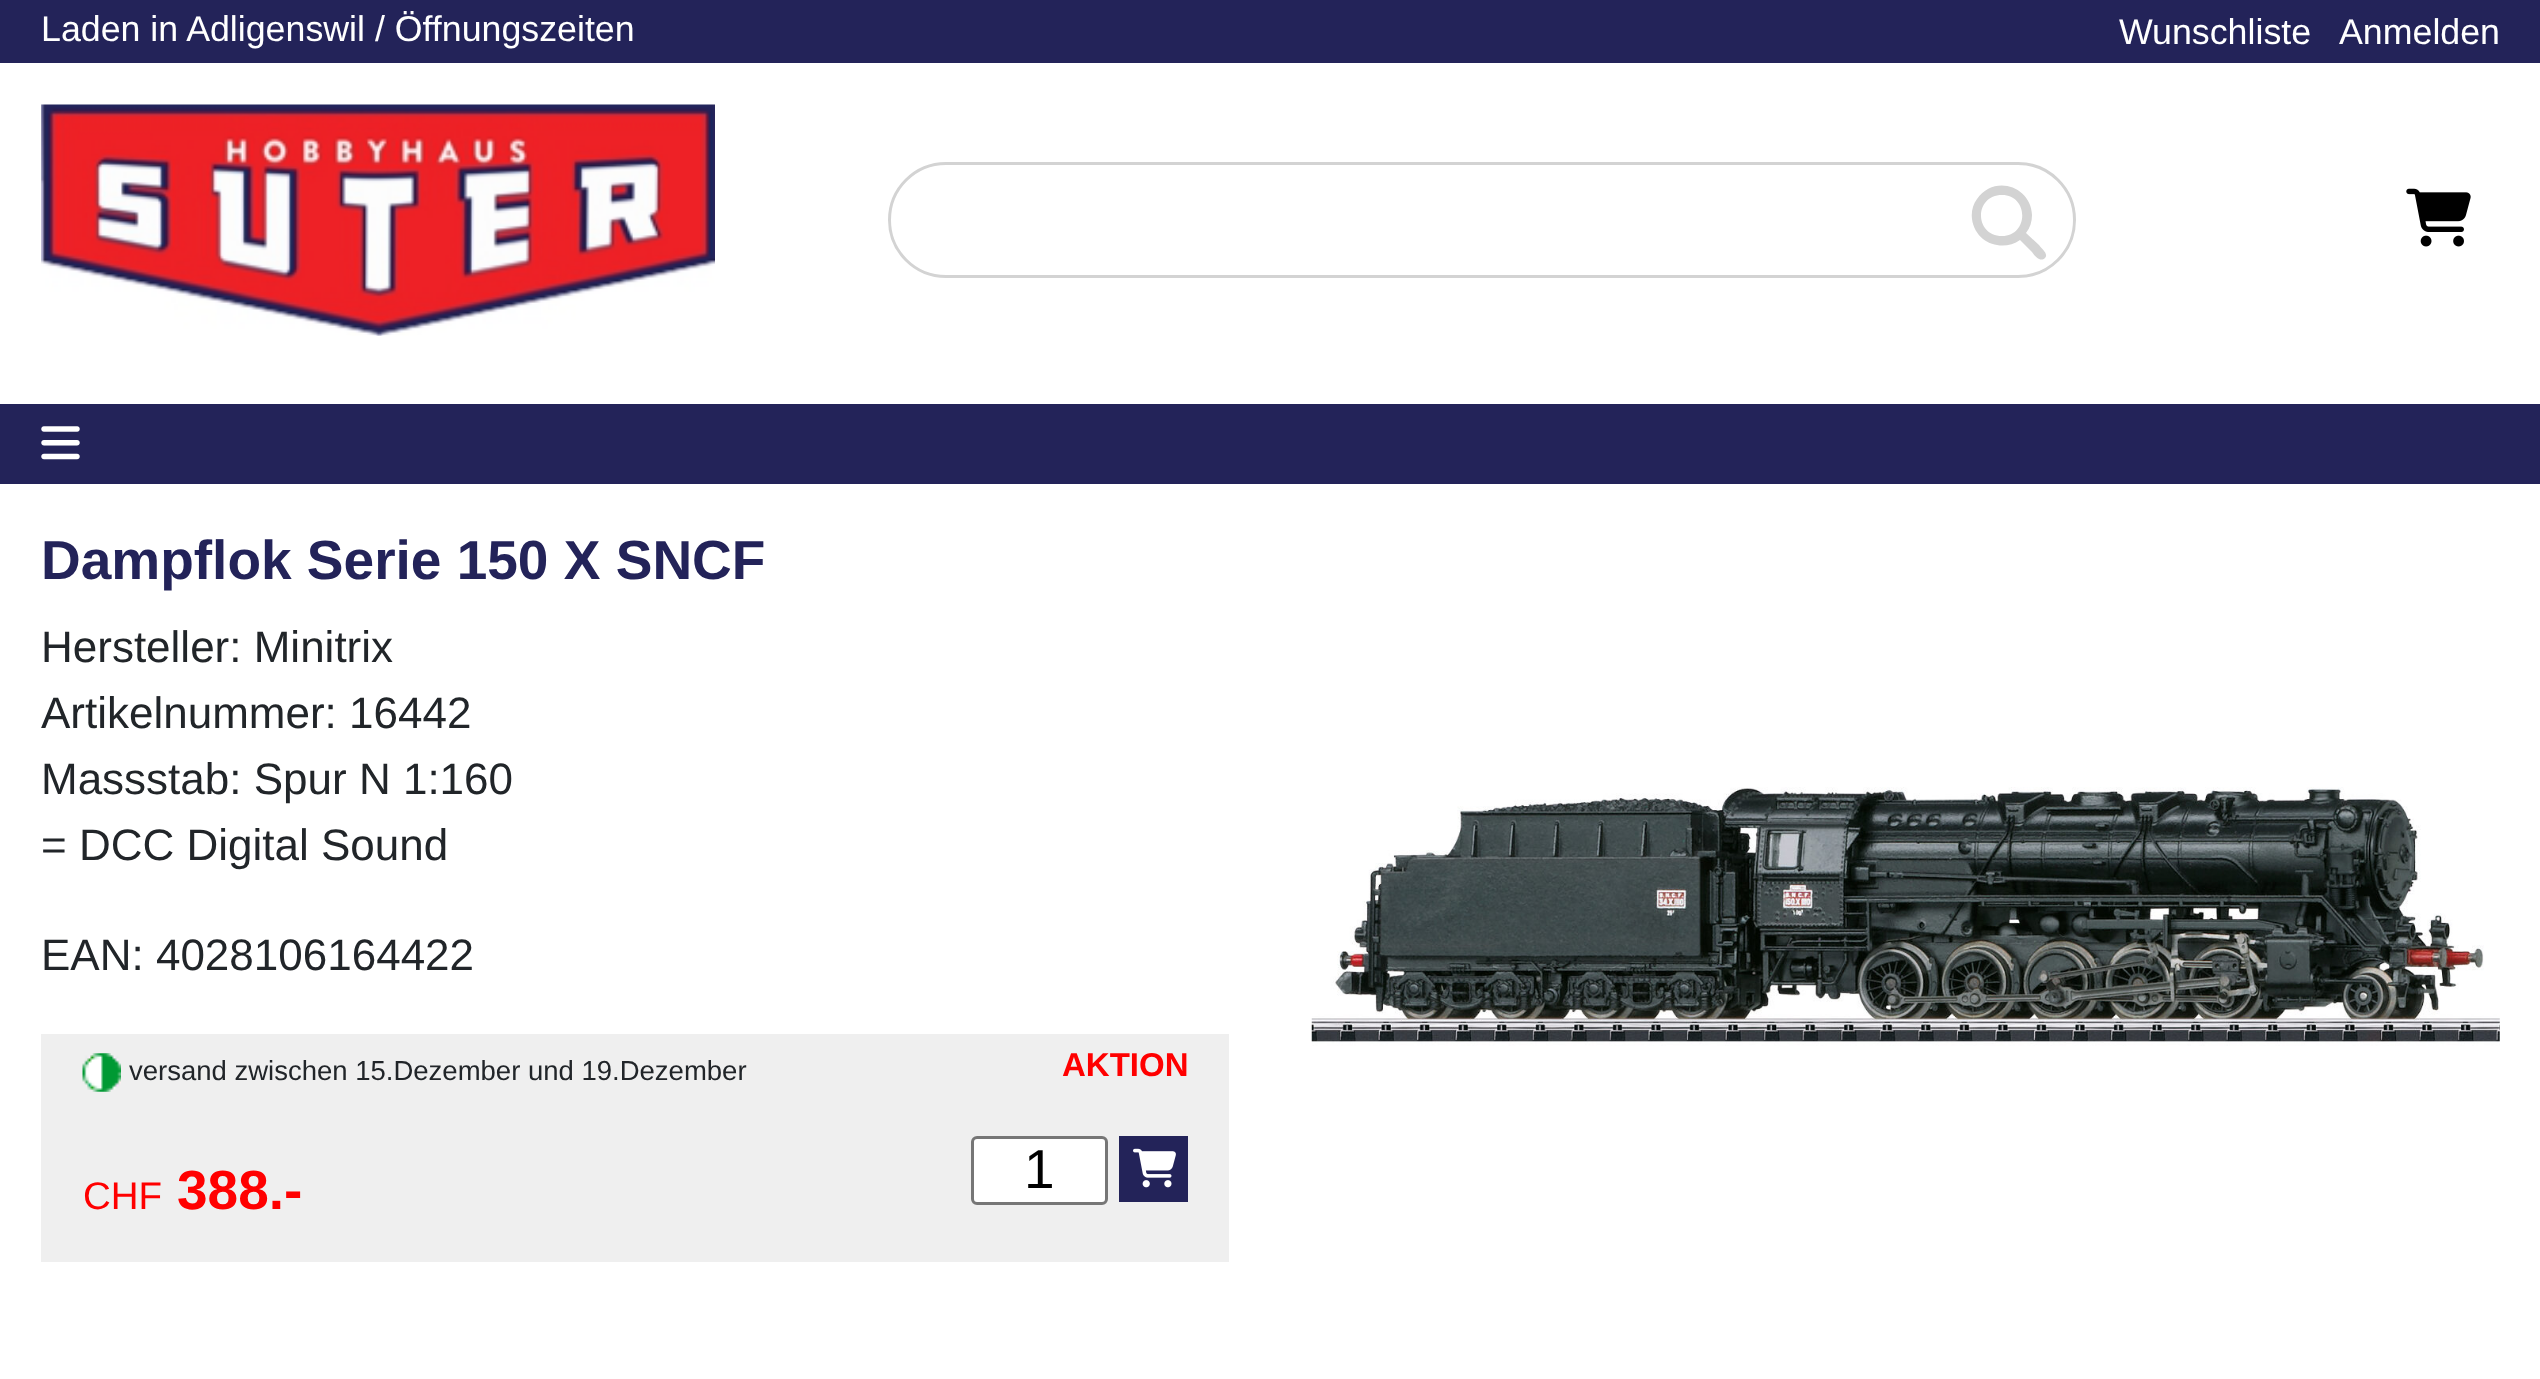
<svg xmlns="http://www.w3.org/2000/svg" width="2540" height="1379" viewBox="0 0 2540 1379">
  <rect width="100%" height="100%" fill="rgb(255,255,255)"/>
  <rect x="0" y="0" width="2540" height="63" fill="rgb(35,35,89)"/>
  <g font-family="Liberation Sans" font-size="35.75" fill="rgb(255,255,255)">
    <text x="41" y="41">Laden in Adligenswil / Öffnungszeiten</text>
    <text x="2119" y="44">Wunschliste</text>
    <text x="2339" y="44">Anmelden</text>
  </g>
  <image x="41" y="104" width="674" height="232" href="pic1.png"/>
  <rect x="889.5" y="163.5" width="1185" height="113" rx="56.5" fill="none" stroke="rgb(211,211,211)" stroke-width="3"/>
  <path d="M2032 215C2032 222 2030 228 2026 233L2039 245C2041 248 2049 254 2045 258C2040 263 2034 255 2032 252L2020 240C2009 248 1993 247 1983 239C1977 234 1973 227 1972 219C1971 212 1973 204 1977 199C1994 174 2031 186 2032 215ZM2002 236C2029 236 2029 195 2002 195C1974 195 1974 236 2002 236Z" fill="rgb(211,211,211)"/>
  <image x="2406" y="188" width="65" height="59" href="pic2.png"/>
  <rect x="0" y="404" width="2540" height="80" fill="rgb(35,35,89)"/>
  <image x="41" y="426" width="39" height="34" href="pic3.png"/>
  <text x="41" y="579" font-family="Liberation Sans" font-size="55" font-weight="bold" fill="rgb(35,35,89)">Dampflok Serie 150 X SNCF</text>
  <g font-family="Liberation Sans" font-size="44" fill="rgb(33,37,41)">
    <text>
      <tspan x="41" y="662">Hersteller: Minitrix</tspan>
      <tspan x="41" y="728">Artikelnummer: 16442</tspan>
      <tspan x="41" y="794">Massstab: Spur N 1:160</tspan>
      <tspan x="41" y="860">= DCC Digital Sound</tspan>
    </text>
    <text x="41" y="970">EAN: 4028106164422</text>
  </g>
  <rect x="41" y="1034" width="1188" height="228" fill="rgb(239,239,239)"/>
  <image x="82" y="1053" width="39" height="39" href="pic4.png"/>
  <text x="129" y="1080" font-family="Liberation Sans" font-size="27.5" fill="rgb(33,37,41)">versand zwischen 15.Dezember und 19.Dezember</text>
  <text x="1062" y="1076" font-family="Liberation Sans" font-size="33" font-weight="bold" fill="rgb(255,0,0)">AKTION</text>
  <text x="83" y="1209" font-family="Liberation Sans" font-size="38.5" fill="rgb(255,0,0)">CHF</text>
  <text x="177" y="1209" font-family="Liberation Sans" font-size="55" font-weight="bold" fill="rgb(255,0,0)">388.-</text>
  <rect x="972.5" y="1137.5" width="134" height="66" rx="4.5" fill="rgb(255,255,255)" stroke="rgb(118,118,118)" stroke-width="3"/>
  <text x="1024" y="1188" font-family="Liberation Sans" font-size="55" fill="rgb(0,0,0)">1</text>
  <rect x="1119" y="1136" width="69" height="66" fill="rgb(35,35,89)"/>
  <image x="1133" y="1148" width="43" height="40" href="pic5.png"/>
  <image x="1311" y="787" width="1189" height="259" href="pic6.png"/>
</svg>
